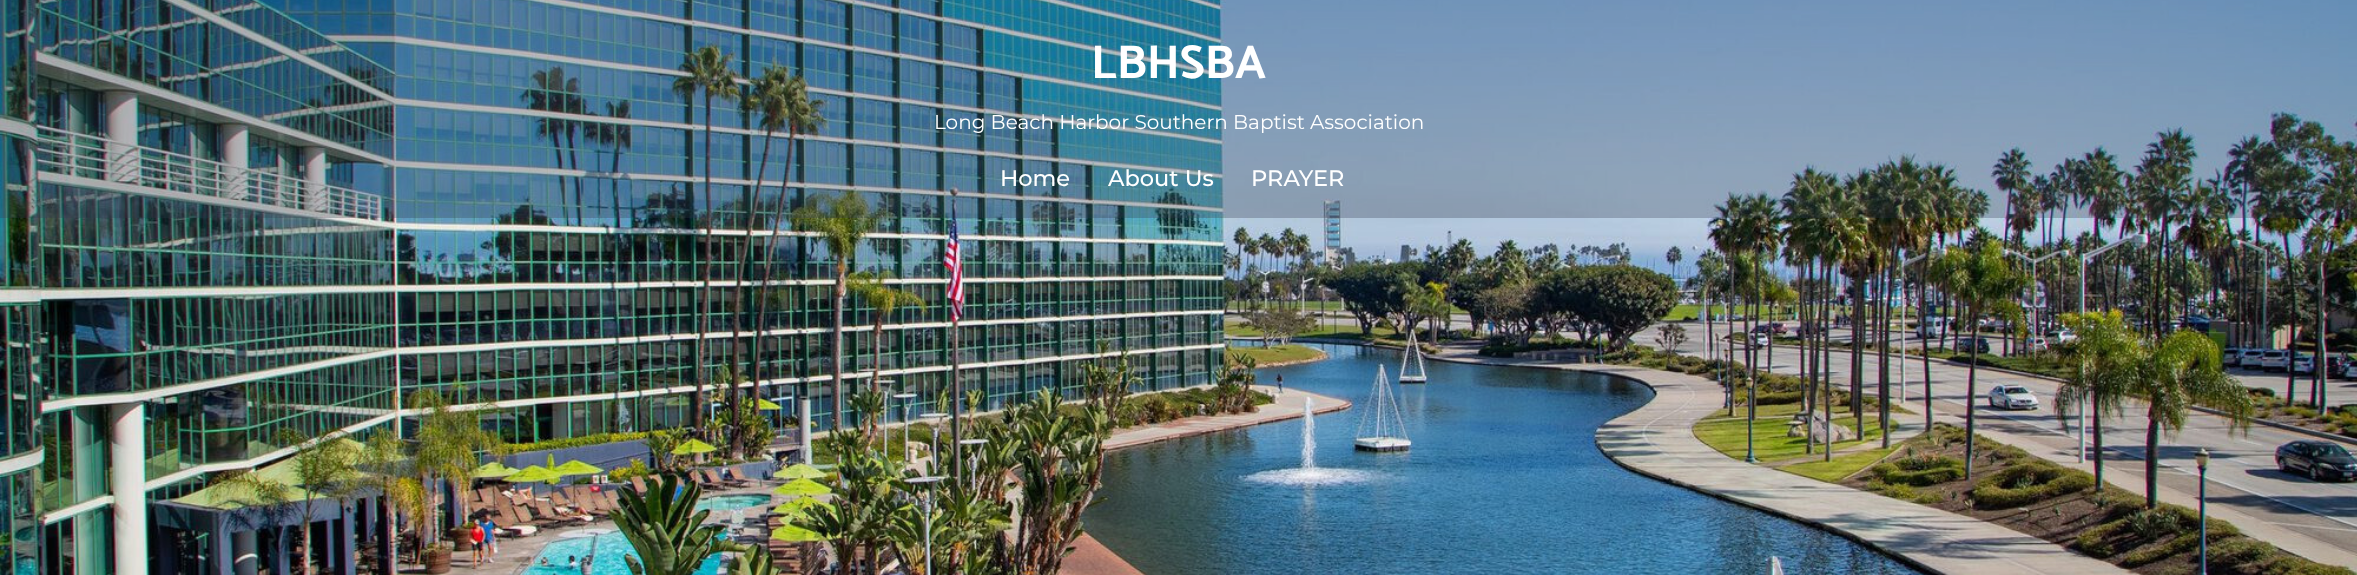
<svg xmlns="http://www.w3.org/2000/svg" width="2357" height="575" viewBox="0 0 2357 575">
  <rect width="100%" height="100%" fill="rgb(255,255,255)"/>
  <image x="0" y="0" width="2357" height="575" href="pic1.png"/>
  <rect x="0" y="0" width="2357" height="218" fill="rgba(50,56,76,0.3)"/>
  <text x="1091" y="78" font-family="Catamaran" font-size="47.5" font-weight="100" fill="rgb(255,255,255)">LBHSBA</text>
  <text x="934" y="129" font-family="Montserrat" font-size="20" fill="rgb(255,255,255)">Long Beach Harbor Southern Baptist Association</text>
  <g font-family="Montserrat" font-size="22.5" font-weight="500" fill="rgb(255,255,255)">
    <text x="1000" y="186">Home</text>
    <text x="1108" y="186">About Us</text>
    <text x="1251" y="186">PRAYER</text>
  </g>
</svg>
